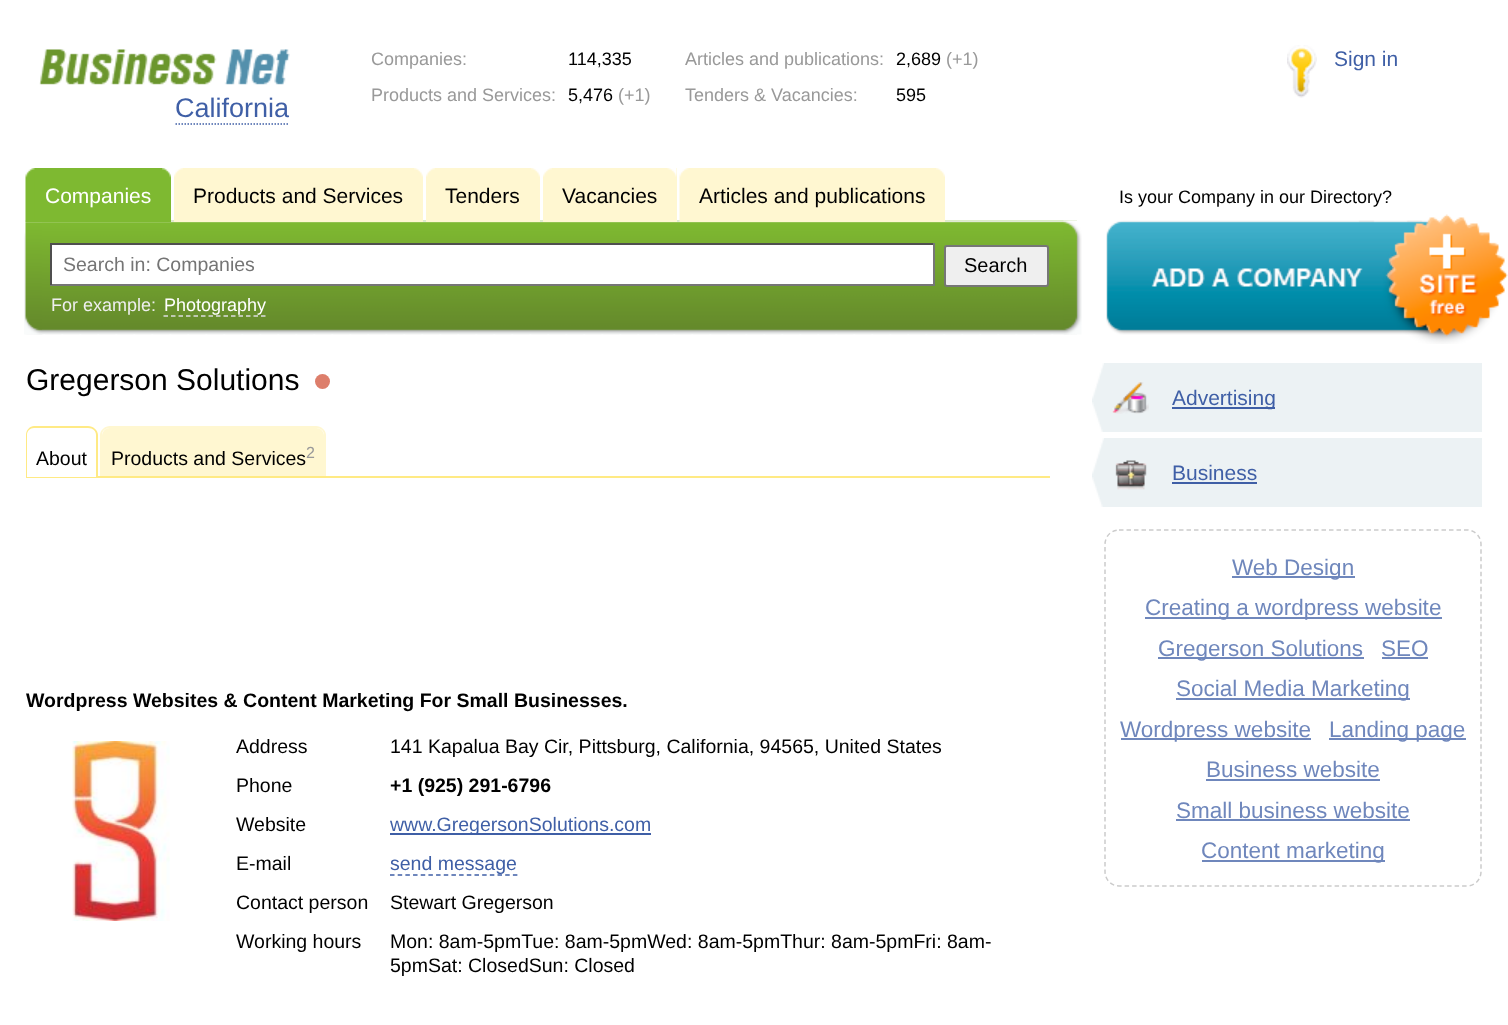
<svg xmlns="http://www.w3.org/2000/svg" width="1508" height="1025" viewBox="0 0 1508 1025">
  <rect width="100%" height="100%" fill="rgb(255,255,255)"/>
  <text x="371" y="65" font-family="Liberation Sans" font-size="18" fill="rgb(153,153,153)">Companies:</text>
  <text x="568" y="65" font-family="Liberation Sans" font-size="18" fill="rgb(0,0,0)">114,335</text>
  <text x="371" y="101" font-family="Liberation Sans" font-size="18" fill="rgb(153,153,153)">Products and Services:</text>
  <text x="568" y="101" font-family="Liberation Sans" font-size="18" fill="rgb(0,0,0)">5,476</text>
  <g font-family="Liberation Sans" font-size="18" fill="rgb(153,153,153)">
    <text x="618" y="101">(+1)</text>
    <text x="685" y="65">Articles and publications:</text>
  </g>
  <text x="896" y="65" font-family="Liberation Sans" font-size="18" fill="rgb(0,0,0)">2,689</text>
  <g font-family="Liberation Sans" font-size="18" fill="rgb(153,153,153)">
    <text x="946" y="65">(+1)</text>
    <text x="685" y="101">Tenders &amp; Vacancies:</text>
  </g>
  <text x="896" y="101" font-family="Liberation Sans" font-size="18" fill="rgb(0,0,0)">595</text>
  <image x="1287" y="45" width="30" height="53" href="pic1.png"/>
  <text x="1334" y="66" font-family="Liberation Sans" font-size="21" fill="rgb(63,95,166)">Sign in</text>
  <text x="175" y="117" font-family="Liberation Sans" font-size="27" fill="rgb(63,95,166)">California</text>
  <image x="39" y="49" width="251" height="49" href="pic2.png"/>
  <path d="M175.5 124H289.5" fill="none" stroke="rgb(63,95,166)" stroke-width="1.5" stroke-dasharray="1.5 1.5"/>
  <image x="25" y="220" width="1052" height="115" href="pic11.png"/>
  <image x="24" y="220" width="18" height="115" href="pic12.png"/>
  <rect x="34" y="168" width="137" height="54" fill="rgb(126,185,49)"/>
  <image x="162" y="168" width="9" height="10" href="pic3.png"/>
  <image x="25" y="168" width="10" height="54" href="pic4.png"/>
  <text x="45" y="203" font-family="Liberation Sans" font-size="21" fill="rgb(255,255,255)">Companies</text>
  <rect x="174" y="168" width="249" height="54" fill="rgb(255,247,209)"/>
  <image x="414" y="168" width="9" height="9" href="pic5.png"/>
  <image x="174" y="168" width="9" height="9" href="pic6.png"/>
  <text x="193" y="203" font-family="Liberation Sans" font-size="21" fill="rgb(0,0,0)">Products and Services</text>
  <rect x="426" y="168" width="114" height="54" fill="rgb(255,247,209)"/>
  <image x="531" y="168" width="9" height="9" href="pic5.png"/>
  <image x="426" y="168" width="9" height="9" href="pic7.png"/>
  <text x="445" y="203" font-family="Liberation Sans" font-size="21" fill="rgb(0,0,0)">Tenders</text>
  <rect x="543" y="168" width="134" height="54" fill="rgb(255,247,209)"/>
  <image x="667" y="168" width="10" height="9" href="pic8.png"/>
  <image x="543" y="168" width="9" height="9" href="pic6.png"/>
  <text x="562" y="203" font-family="Liberation Sans" font-size="21" fill="rgb(0,0,0)">Vacancies</text>
  <rect x="688" y="168" width="257" height="54" fill="rgb(255,247,209)"/>
  <image x="936" y="168" width="9" height="9" href="pic9.png"/>
  <image x="679" y="168" width="10" height="54" href="pic10.png"/>
  <text x="699" y="203" font-family="Liberation Sans" font-size="21" fill="rgb(0,0,0)">Articles and publications</text>
  <rect x="52" y="245" width="881" height="39" fill="rgb(255,255,255)"/>
  <rect x="50" y="243" width="885" height="2" fill="rgb(79,79,79)"/>
  <rect x="933" y="243" width="2" height="42" fill="rgb(118,118,118)"/>
  <rect x="50" y="284" width="885" height="2" fill="rgb(118,118,118)"/>
  <rect x="50" y="243" width="2" height="42" fill="rgb(79,79,79)"/>
  <text x="63" y="271" font-family="Liberation Sans" font-size="19.5" fill="rgb(117,117,117)">Search in: Companies</text>
  <rect x="945" y="246" width="103" height="40" rx="2" fill="rgb(239,239,239)" stroke="rgb(118,118,118)" stroke-width="2"/>
  <text x="964" y="272" font-family="Liberation Sans" font-size="20" fill="rgb(0,0,0)">Search</text>
  <image x="1063" y="220" width="19" height="115" href="pic13.png"/>
  <text x="51" y="311" font-family="Liberation Sans" font-size="18" fill="rgb(238,238,238)">For example:</text>
  <text x="164" y="311" font-family="Liberation Sans" font-size="18" fill="rgb(255,255,255)">Photography</text>
  <path d="M163.5 316H265.5" fill="none" stroke="rgb(221,221,221)" stroke-width="1.5" stroke-dasharray="4.5 3"/>
  <text x="1119" y="203" font-family="Liberation Sans" font-size="18" fill="rgb(0,0,0)">Is your Company in our Directory?</text>
  <image x="1106" y="214" width="402" height="130" href="pic14.png"/>
  <text x="26" y="390" font-family="Liberation Sans" font-size="30" fill="rgb(0,0,0)">Gregerson Solutions</text>
  <circle cx="322.5" cy="381.5" r="7.5" fill="rgb(221,126,107)"/>
  <rect x="26" y="476" width="1024" height="2" fill="rgb(255,234,132)"/>
  <path d="M35 428H88C92.5 428 96 431.5 96 436V477H27V436C27 431.5 30.5 428 35 428Z" fill="rgb(255,255,255)"/>
  <path d="M34 426H88C93 426 98 430 98 435V477H26V435C26 430 30 426 34 426ZM34 428H88C93 428 96 431 96 435V477H27V435C27 431 30 428 34 428Z" fill="rgb(255,234,133)" fill-rule="evenodd"/>
  <text x="36" y="465" font-family="Liberation Sans" font-size="19.5" fill="rgb(0,0,0)">About</text>
  <path d="M110 428H316C320.5 428 324 431.5 324 436V476H102V436C102 431.5 105.5 428 110 428Z" fill="rgb(255,247,209)"/>
  <path d="M110 426H316C321 426 326 430 326 435V476H100V435C100 430 105 426 110 426ZM110 428H316C321 428 324 431 324 435V476H102V435C102 431 105 428 110 428Z" fill="rgb(255,247,209)" fill-rule="evenodd"/>
  <text x="111" y="465" font-family="Liberation Sans" font-size="19.5" fill="rgb(0,0,0)">Products and Services</text>
  <text x="306" y="458" font-family="Liberation Sans" font-size="16" fill="rgb(153,153,153)">2</text>
  <text x="26" y="707" font-family="Liberation Sans" font-size="19.5" font-weight="bold" fill="rgb(0,0,0)">Wordpress Websites &amp; Content Marketing For Small Businesses.</text>
  <image x="72" y="741" width="98" height="180" href="pic15.png"/>
  <g font-family="Liberation Sans" font-size="19.5" fill="rgb(0,0,0)">
    <text x="236" y="753">Address</text>
    <text x="390" y="753">141 Kapalua Bay Cir, Pittsburg, California, 94565, United States</text>
    <text x="236" y="792">Phone</text>
  </g>
  <text x="390" y="792" font-family="Liberation Sans" font-size="19.5" font-weight="bold" fill="rgb(0,0,0)">+1 (925) 291-6796</text>
  <text x="236" y="831" font-family="Liberation Sans" font-size="19.5" fill="rgb(0,0,0)">Website</text>
  <rect x="390" y="833" width="261" height="2" fill="rgb(63,95,166)"/>
  <text x="390" y="831" font-family="Liberation Sans" font-size="19.5" fill="rgb(63,95,166)">www.GregersonSolutions.com</text>
  <text x="236" y="870" font-family="Liberation Sans" font-size="19.5" fill="rgb(0,0,0)">E-mail</text>
  <path d="M390 875H517.5" fill="none" stroke="rgb(63,95,166)" stroke-width="1.5" stroke-dasharray="4.5 3.18"/>
  <text x="390" y="870" font-family="Liberation Sans" font-size="19.5" fill="rgb(63,95,166)">send message</text>
  <g font-family="Liberation Sans" font-size="19.5" fill="rgb(0,0,0)">
    <text x="236" y="909">Contact person</text>
    <text x="390" y="909">Stewart Gregerson</text>
    <text x="236" y="948">Working hours</text>
    <text>
      <tspan x="390" y="948">Mon: 8am-5pmTue: 8am-5pmWed: 8am-5pmThur: 8am-5pmFri: 8am-</tspan>
      <tspan x="390" y="972">5pmSat: ClosedSun: Closed</tspan>
    </text>
  </g>
  <rect x="1104" y="363" width="378" height="69" fill="rgb(236,242,244)"/>
  <image x="1092" y="363" width="12" height="69" href="pic16.png"/>
  <image x="1112" y="382" width="37" height="32" href="pic17.png"/>
  <rect x="1172" y="407" width="103" height="2" fill="rgb(63,95,166)"/>
  <text x="1172" y="405" font-family="Liberation Sans" font-size="21" fill="rgb(63,95,166)">Advertising</text>
  <rect x="1104" y="438" width="378" height="69" fill="rgb(236,242,244)"/>
  <image x="1092" y="438" width="12" height="69" href="pic16.png"/>
  <image x="1115" y="460" width="32" height="30" href="pic18.png"/>
  <text x="1172" y="480" font-family="Liberation Sans" font-size="21" fill="rgb(63,95,166)">Business</text>
  <rect x="1172" y="482" width="85" height="2" fill="rgb(63,95,166)"/>
  <path d="M1119 530H1467C1475 530 1481 536.5 1481 544.5V871.5C1481 879.5 1475 886 1467 886H1119C1111 886 1105 879.5 1105 871.5V544.5C1105 536.5 1111 530 1119 530Z" fill="none" stroke="rgb(204,204,204)" stroke-width="1.5" stroke-dasharray="4.5 3"/>
  <rect x="1232" y="576" width="123" height="2" fill="rgb(111,135,188)"/>
  <text x="1232" y="575" font-family="Liberation Sans" font-size="22.5" fill="rgb(111,135,188)">Web Design</text>
  <rect x="1145" y="617" width="297" height="2" fill="rgb(111,135,188)"/>
  <text x="1145" y="615" font-family="Liberation Sans" font-size="22.5" fill="rgb(111,135,188)">Creating a wordpress website</text>
  <rect x="1158" y="657" width="206" height="2" fill="rgb(111,135,188)"/>
  <g font-family="Liberation Sans" font-size="22.5" fill="rgb(111,135,188)">
    <text x="1158" y="656">Gregerson Solutions</text>
    <text x="1381" y="656">SEO</text>
  </g>
  <rect x="1382" y="657" width="46" height="2" fill="rgb(111,135,188)"/>
  <rect x="1176" y="698" width="234" height="2" fill="rgb(111,135,188)"/>
  <text x="1176" y="696" font-family="Liberation Sans" font-size="22.5" fill="rgb(111,135,188)">Social Media Marketing</text>
  <rect x="1121" y="738" width="190" height="2" fill="rgb(111,135,188)"/>
  <text x="1120" y="737" font-family="Liberation Sans" font-size="22.5" fill="rgb(111,135,188)">Wordpress website</text>
  <rect x="1329" y="738" width="137" height="2" fill="rgb(111,135,188)"/>
  <g font-family="Liberation Sans" font-size="22.5" fill="rgb(111,135,188)">
    <text x="1329" y="737">Landing page</text>
    <text x="1206" y="777">Business website</text>
  </g>
  <rect x="1206" y="779" width="174" height="2" fill="rgb(111,135,188)"/>
  <text x="1176" y="818" font-family="Liberation Sans" font-size="22.5" fill="rgb(111,135,188)">Small business website</text>
  <rect x="1176" y="819" width="234" height="2" fill="rgb(111,135,188)"/>
  <rect x="1202" y="860" width="183" height="2" fill="rgb(111,135,188)"/>
  <text x="1201" y="858" font-family="Liberation Sans" font-size="22.5" fill="rgb(111,135,188)">Content marketing</text>
</svg>
